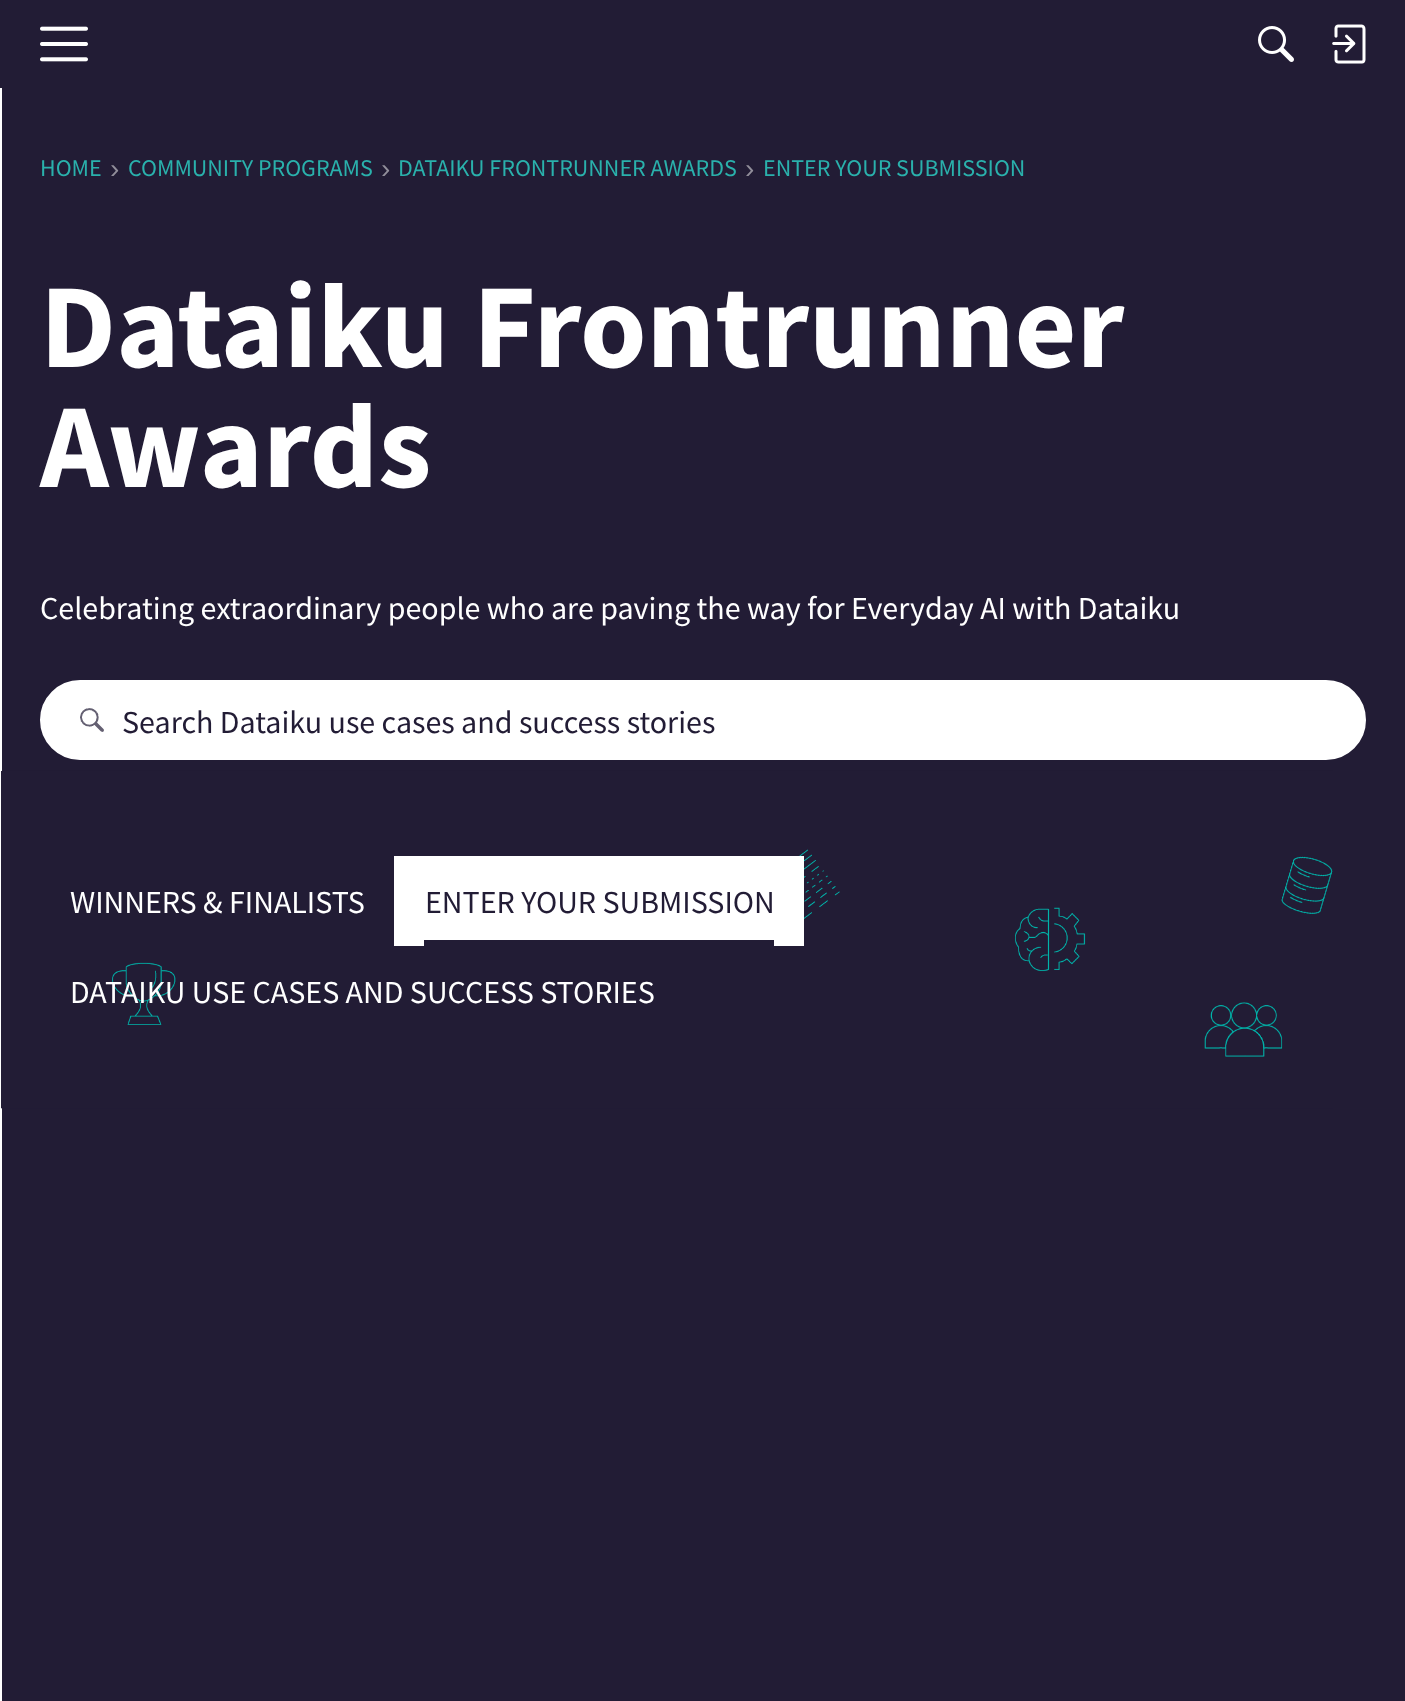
<svg xmlns="http://www.w3.org/2000/svg" width="1405" height="1701" viewBox="0 0 1405 1701">
  <rect width="100%" height="100%" fill="rgb(255,255,255)"/>
  <rect x="0" y="0" width="1405" height="88" fill="rgb(34,28,53)"/>
  <image x="40" y="26" width="48" height="36" href="pic1.png"/>
  <image x="1258" y="26" width="36" height="36" href="pic2.png"/>
  <image x="1332" y="24" width="34" height="40" href="pic3.png"/>
  <rect x="2" y="88" width="1403" height="1613" fill="rgb(34,28,53)"/>
  <text x="40" y="176" font-family="Source Sans Pro" font-size="24" fill="rgb(42,177,172)">HOME</text>
  <text x="110" y="178" font-family="Liberation Sans" font-size="28" fill="rgb(145,142,154)">›</text>
  <text x="128" y="176" font-family="Source Sans Pro" font-size="24" fill="rgb(42,177,172)">COMMUNITY PROGRAMS</text>
  <text x="381" y="178" font-family="Liberation Sans" font-size="28" fill="rgb(145,142,154)">›</text>
  <text x="398" y="176" font-family="Source Sans Pro" font-size="24" fill="rgb(42,177,172)">DATAIKU FRONTRUNNER AWARDS</text>
  <text x="745" y="178" font-family="Liberation Sans" font-size="28" fill="rgb(145,142,154)">›</text>
  <text x="763" y="176" font-family="Source Sans Pro" font-size="24" fill="rgb(42,177,172)">ENTER YOUR SUBMISSION</text>
  <image x="1" y="770" width="1332" height="339" href="pic4.png"/>
  <g font-family="Source Sans Pro" font-size="120" font-weight="bold" fill="rgb(255,255,255)">
    <text>
      <tspan x="40" y="367">Dataiku Frontrunner</tspan>
      <tspan x="40" y="487">Awards</tspan>
    </text>
  </g>
  <text x="40" y="619" font-family="Source Sans Pro" font-size="32" fill="rgb(255,255,255)">Celebrating extraordinary people who are paving the way for Everyday AI with Dataiku</text>
  <rect x="41" y="681" width="1324" height="78" rx="39" fill="rgb(255,255,255)" stroke="rgb(255,255,255)" stroke-width="2"/>
  <rect x="80" y="708" width="24" height="24" fill="rgb(100,96,114)"/>
  <image x="76" y="684" width="32" height="72" href="pic5.png"/>
  <text x="122" y="733" font-family="Source Sans Pro" font-size="32" fill="rgb(34,28,53)">Search Dataiku use cases and success stories</text>
  <text x="70" y="913" font-family="Source Sans Pro" font-size="32" fill="rgb(255,255,255)">WINNERS &amp; FINALISTS</text>
  <rect x="394" y="856" width="410" height="90" fill="rgb(255,255,255)"/>
  <text x="425" y="913" font-family="Source Sans Pro" font-size="32" fill="rgb(34,28,53)">ENTER YOUR SUBMISSION</text>
  <rect x="424" y="940" width="350" height="6" fill="rgb(34,28,53)"/>
  <text x="70" y="1003" font-family="Source Sans Pro" font-size="32" fill="rgb(255,255,255)">DATAIKU USE CASES AND SUCCESS STORIES</text>
</svg>
